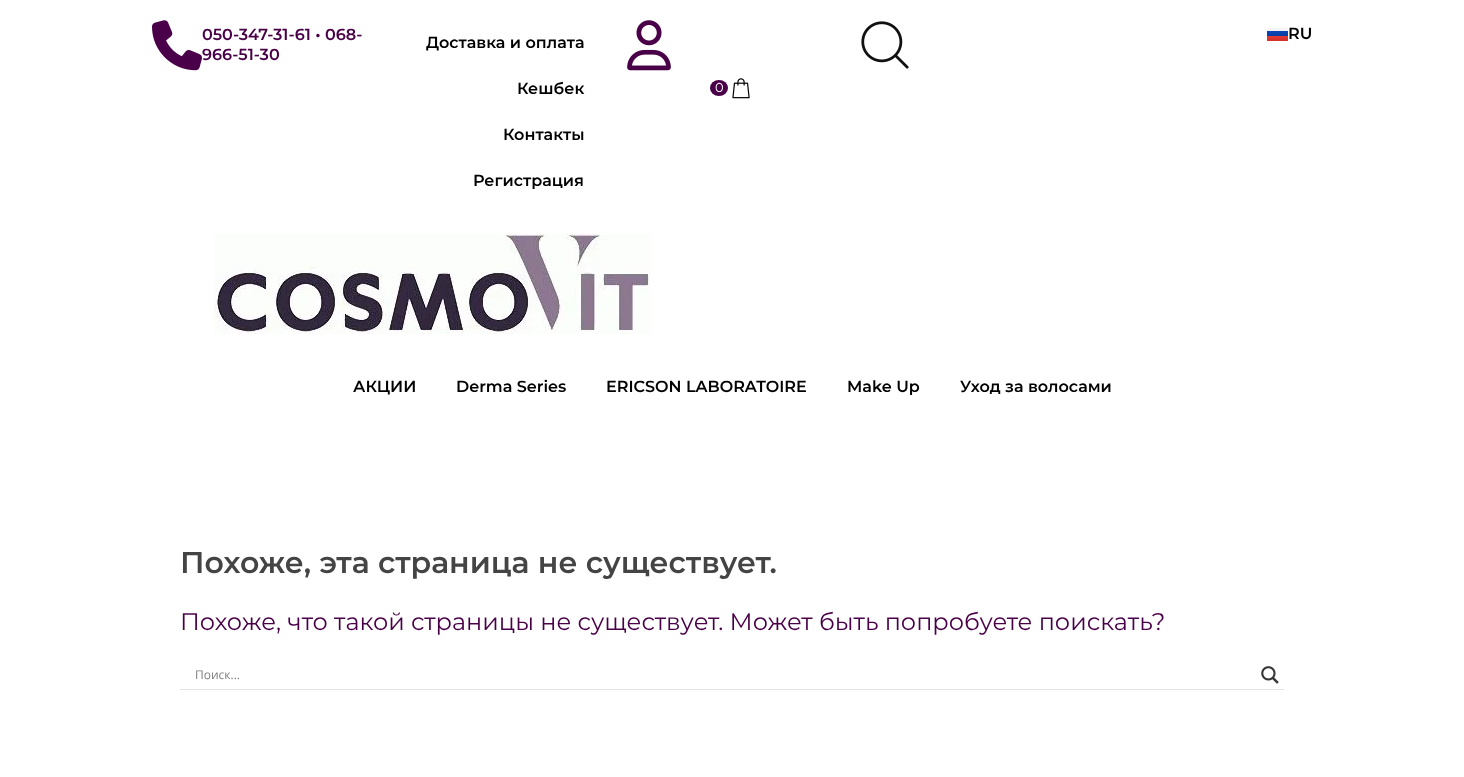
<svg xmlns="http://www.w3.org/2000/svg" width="1464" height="777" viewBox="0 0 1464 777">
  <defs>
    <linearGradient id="g1" gradientUnits="userSpaceOnUse" x1="1278" y1="26" x2="1278" y2="31"><stop offset="0" stop-color="rgb(255,255,255)"/><stop offset="1" stop-color="rgb(240,240,240)"/></linearGradient>
    <linearGradient id="g2" gradientUnits="userSpaceOnUse" x1="1278" y1="31" x2="1278" y2="36"><stop offset="0" stop-color="rgb(12,71,183)"/><stop offset="1" stop-color="rgb(7,61,164)"/></linearGradient>
    <linearGradient id="g3" gradientUnits="userSpaceOnUse" x1="1278" y1="36" x2="1278" y2="41"><stop offset="0" stop-color="rgb(229,59,53)"/><stop offset="1" stop-color="rgb(211,46,40)"/></linearGradient>
  </defs>
  <rect width="100%" height="100%" fill="rgb(255,255,255)"/>
  <image x="152" y="20" width="50" height="51" href="pic1.png"/>
  <g font-family="Montserrat" font-size="16" font-weight="600" fill="rgb(73,0,72)">
    <text>
      <tspan x="202" y="40">050-347-31-61 • 068-</tspan>
      <tspan x="202" y="60">966-51-30</tspan>
    </text>
  </g>
  <g font-family="Montserrat" font-size="16" font-weight="600" fill="rgb(0,0,0)">
    <text x="426" y="48">Доставка и оплата</text>
    <text x="517" y="94">Кешбек</text>
    <text x="503" y="140">Контакты</text>
    <text x="473" y="186">Регистрация</text>
  </g>
  <image x="627" y="20" width="44" height="51" href="pic2.png"/>
  <ellipse cx="719" cy="88" rx="9" ry="8" fill="rgb(73,0,72)"/>
  <text x="715" y="92" font-family="Montserrat" font-size="13" fill="rgb(255,255,255)">0</text>
  <image x="732" y="78" width="18" height="21" href="pic3.png"/>
  <image x="861" y="21" width="48" height="48" href="pic4.png"/>
  <rect x="1267" y="27" width="21" height="4" fill="url(#g1)"/>
  <rect x="1267" y="31" width="21" height="5" fill="url(#g2)"/>
  <rect x="1267" y="36" width="21" height="5" fill="url(#g3)"/>
  <text x="1288" y="39" font-family="Montserrat" font-size="16" font-weight="600" fill="rgb(0,0,0)">RU</text>
  <image x="214" y="234" width="437" height="100" href="pic5.png"/>
  <g font-family="Montserrat" font-size="16" font-weight="600" fill="rgb(0,0,0)">
    <text x="353" y="392">АКЦИИ</text>
    <text x="456" y="392">Derma Series</text>
    <text x="606" y="392">ERICSON LABORATOIRE</text>
    <text x="847" y="392">Make Up</text>
    <text x="960" y="392">Уход за волосами</text>
  </g>
  <text x="180" y="573" font-family="Montserrat" font-size="30" font-weight="600" fill="rgb(68,68,68)">Похоже, эта страница не существует.</text>
  <text x="180" y="630" font-family="Montserrat" font-size="24" fill="rgb(73,0,72)">Похоже, что такой страницы не существует. Может быть попробуете поискать?</text>
  <rect x="180" y="689" width="1104" height="1" fill="rgb(228,228,228)"/>
  <text x="195" y="679" font-family="Open Sans" font-size="12" fill="rgb(125,125,125)">Поиск...</text>
  <image x="1261" y="666" width="18" height="18" href="pic6.png"/>
</svg>
